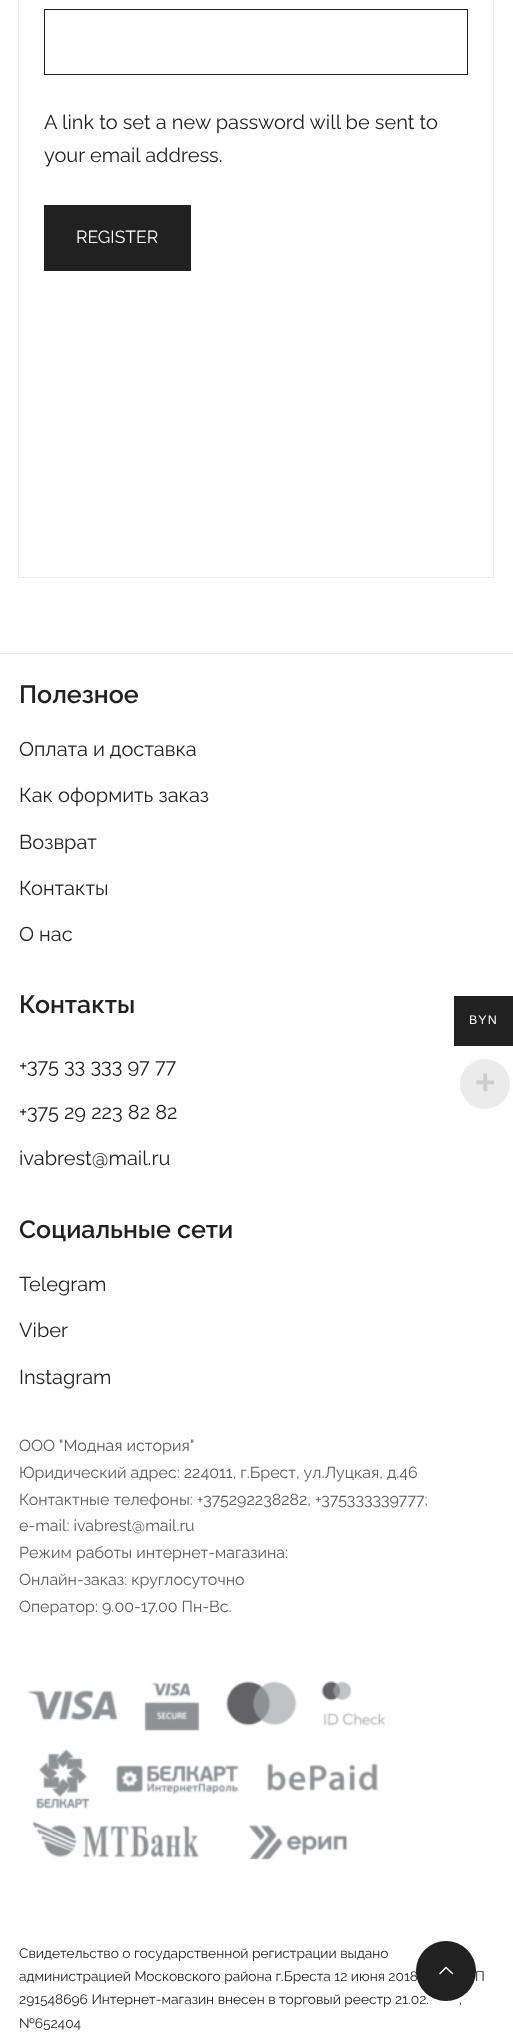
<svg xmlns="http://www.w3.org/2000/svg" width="513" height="2038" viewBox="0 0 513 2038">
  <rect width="100%" height="100%" fill="rgb(255,255,255)"/>
  <rect x="18.5" y="-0.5" width="475" height="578" fill="none" stroke="rgb(235,235,235)"/>
  <rect x="44.5" y="9.5" width="423" height="65" fill="none" stroke="rgb(33,33,33)"/>
  <g font-family="Raleway" font-size="20" fill="rgb(33,33,33)">
    <text>
      <tspan x="44" y="129">A link to set a new password will be sent to</tspan>
      <tspan x="44" y="162">your email address.</tspan>
    </text>
  </g>
  <rect x="44" y="205" width="147" height="66" fill="rgb(33,33,33)"/>
  <text x="76" y="243" font-family="Raleway" font-size="17.5" fill="rgb(255,255,255)">REGISTER</text>
  <rect x="0" y="653" width="513" height="1" fill="rgb(238,238,238)"/>
  <text x="19" y="703" font-family="Raleway" font-size="25" font-weight="600" fill="rgb(33,33,33)">Полезное</text>
  <g font-family="Raleway" font-size="20" fill="rgb(33,33,33)">
    <text x="19" y="756">Оплата и доставка</text>
    <text x="19" y="802">Как оформить заказ</text>
    <text x="19" y="849">Возврат</text>
    <text x="19" y="895">Контакты</text>
    <text x="19" y="941">О нас</text>
  </g>
  <text x="19" y="1013" font-family="Raleway" font-size="25" font-weight="600" fill="rgb(33,33,33)">Контакты</text>
  <g font-family="Raleway" font-size="20" fill="rgb(33,33,33)">
    <text x="19" y="1073">+375 33 333 97 77</text>
    <text x="19" y="1119">+375 29 223 82 82</text>
    <text x="19" y="1165">ivabrest@mail.ru</text>
  </g>
  <text x="19" y="1238" font-family="Raleway" font-size="25" font-weight="600" fill="rgb(33,33,33)">Социальные сети</text>
  <g font-family="Raleway" font-size="20" fill="rgb(33,33,33)">
    <text x="19" y="1291">Telegram</text>
    <text x="19" y="1337">Viber</text>
    <text x="19" y="1384">Instagram</text>
  </g>
  <g font-family="Raleway" font-size="16" fill="rgb(89,89,89)">
    <text>
      <tspan x="19" y="1451">ООО "Модная история"</tspan>
      <tspan x="19" y="1478">Юридический адрес: 224011, г.Брест, ул.Луцкая, д.46</tspan>
      <tspan x="19" y="1505">Контактные телефоны: +375292238282, +375333339777;</tspan>
      <tspan x="19" y="1531">e-mail: ivabrest@mail.ru</tspan>
      <tspan x="19" y="1558">Режим работы интернет-магазина:</tspan>
      <tspan x="19" y="1585">Онлайн-заказ: круглосуточно</tspan>
      <tspan x="19" y="1612">Оператор: 9.00-17.00 Пн-Вс.</tspan>
    </text>
  </g>
  <image x="27" y="1680" width="358" height="180" href="pic1.png"/>
  <g font-family="Raleway" font-size="13.75" fill="rgb(33,33,33)">
    <text>
      <tspan x="19" y="1958">Свидетельство о государственной регистрации выдано</tspan>
      <tspan x="19" y="1981">администрацией Московского района г.Бреста 12 июня 2018</tspan>
    </text>
    <text x="475" y="1981">П</text>
    <text x="19" y="2004">291548696 Интернет-магазин внесен в торговый реестр 21.02.</text>
    <text x="459" y="2004">,</text>
    <text x="19" y="2028">№652404</text>
  </g>
  <circle cx="446" cy="1971" r="30" fill="rgb(33,33,33)"/>
  <path d="M439.5 1974L446 1967.5L453 1974" fill="none" stroke="rgb(255,255,255)" stroke-width="1.4" stroke-linejoin="round"/>
  <rect x="454" y="996" width="59" height="50" fill="rgb(33,33,33)"/>
  <text x="469" y="1024" font-family="Liberation Sans" font-size="12.5" letter-spacing="1" fill="rgb(255,255,255)">BYN</text>
  <circle cx="485" cy="1084" r="25" fill="rgb(235,235,235)"/>
  <text x="475" y="1094" font-family="Liberation Sans" font-size="35" font-weight="bold" fill="rgb(204,204,204)">+</text>
</svg>
